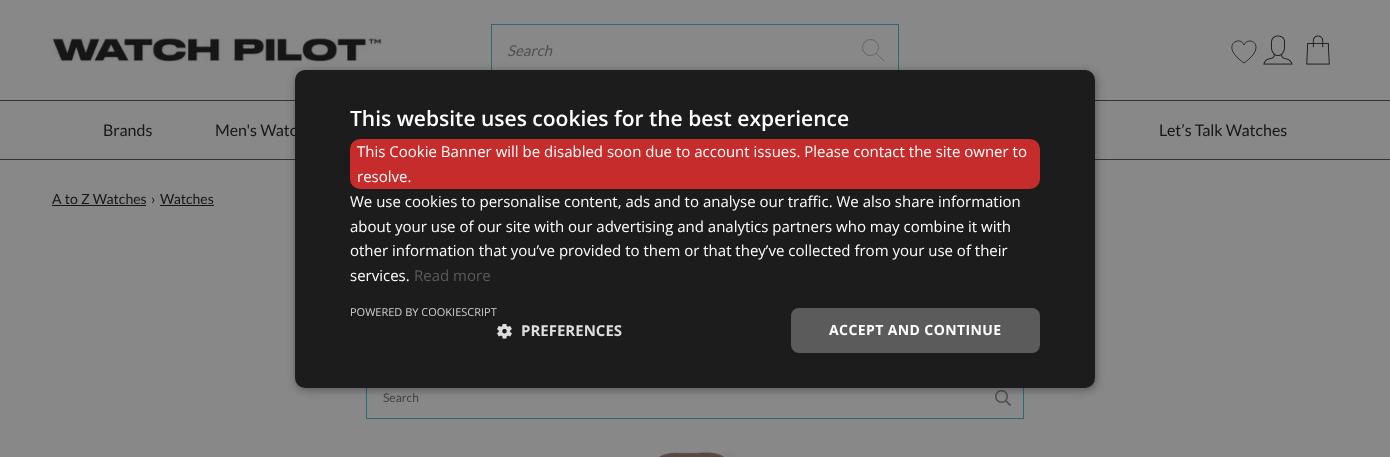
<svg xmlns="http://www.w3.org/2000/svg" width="1390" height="457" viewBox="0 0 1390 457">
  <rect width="100%" height="100%" fill="rgb(136,136,136)"/>
  <image x="52" y="38" width="330" height="24" href="pic1.png"/>
  <rect x="491.5" y="24.5" width="407" height="51" fill="none" stroke="rgb(45,104,116)"/>
  <text x="507" y="56" font-family="Lato" font-size="15" font-style="italic" fill="rgb(79,79,80)">Search</text>
  <path d="M876.5 53.5L884 61" fill="none" stroke="rgb(97,97,97)" stroke-width="0.9" stroke-linecap="round" stroke-linejoin="round"/>
  <circle cx="870.5" cy="47.5" r="8" fill="none" stroke="rgb(97,97,97)" stroke-width="0.9"/>
  <path d="M1250 41C1247.5 41 1245 42.5 1244 45C1240.5 34.5 1218.5 45.5 1244 63C1251.5 57.5 1256 52.5 1256 47C1256 44 1253.5 41 1250 41Z" fill="none" stroke="rgb(25,25,25)" stroke-width="0.8"/>
  <image x="1263" y="35" width="30" height="30" href="pic2.png"/>
  <image x="1306" y="35" width="24" height="30" href="pic3.png"/>
  <rect x="0" y="100" width="1390" height="1" fill="rgb(51,51,52)"/>
  <rect x="0" y="159" width="1390" height="1" fill="rgb(51,51,52)"/>
  <g font-family="Lato" font-size="16" fill="rgb(22,22,24)">
    <text x="103" y="136">Brands</text>
    <text x="215" y="136">Men's Watc</text>
    <text x="1159" y="136">Let’s Talk Watches</text>
  </g>
  <text x="52" y="204" word-spacing="0.5" font-family="Lato" font-size="14" fill="rgb(22,22,24)">A to Z Watches</text>
  <rect x="52" y="205" width="94" height="1" fill="rgb(22,22,24)"/>
  <g font-family="Lato" font-size="14" fill="rgb(22,22,24)">
    <text x="151" y="204">›</text>
    <text x="160" y="204">Watches</text>
  </g>
  <rect x="160" y="205" width="54" height="1" fill="rgb(22,22,24)"/>
  <rect x="366.5" y="377.5" width="657" height="41" fill="none" stroke="rgb(45,104,116)"/>
  <image x="995" y="390" width="16" height="16" href="pic5.png"/>
  <rect x="296" y="72" width="800" height="318" rx="10" fill="rgba(0,0,0,0.35)" filter="blur(4px)"/>
  <rect x="295" y="70" width="800" height="318" rx="10" fill="rgb(28,28,28)"/>
  <text x="350" y="126" font-family="Open Sans" font-size="21" font-weight="600" fill="rgb(255,255,255)">This website uses cookies for the best experience</text>
  <rect x="350" y="139" width="690" height="50" rx="10" fill="rgb(198,44,44)"/>
  <g font-family="Open Sans" font-size="15" fill="rgb(255,255,255)">
    <text>
      <tspan x="357" y="157">This Cookie Banner will be disabled soon due to account issues. Please contact the site owner to</tspan>
      <tspan x="357" y="182">resolve.</tspan>
    </text>
    <text>
      <tspan x="350" y="207">We use cookies to personalise content, ads and to analyse our traffic. We also share information</tspan>
      <tspan x="350" y="232">about your use of our site with our advertising and analytics partners who may combine it with</tspan>
      <tspan x="350" y="256">other information that you’ve provided to them or that they’ve collected from your use of their</tspan>
      <tspan x="350" y="281">services.</tspan>
    </text>
  </g>
  <text x="414" y="281" font-family="Open Sans" font-size="15" fill="rgb(91,91,91)">Read more</text>
  <text x="350" y="316" font-family="Open Sans" font-size="11" fill="rgb(210,210,210)">POWERED BY COOKIESCRIPT</text>
  <image x="497" y="324" width="15" height="15" href="pic4.png"/>
  <text x="521" y="336" font-family="Open Sans" font-size="15" font-weight="bold" fill="rgb(221,221,221)">PREFERENCES</text>
  <rect x="791" y="308" width="249" height="45" rx="8" fill="rgb(91,91,91)"/>
  <text x="829" y="335" font-family="Open Sans" font-size="14" font-weight="bold" letter-spacing="0.4" fill="rgb(255,255,255)">ACCEPT AND CONTINUE</text>
  <text x="383" y="402" font-family="Lato" font-size="12" fill="rgb(63,67,71)">Search</text>
  <image x="658" y="451" width="77" height="6" href="pic6.png"/>
</svg>
